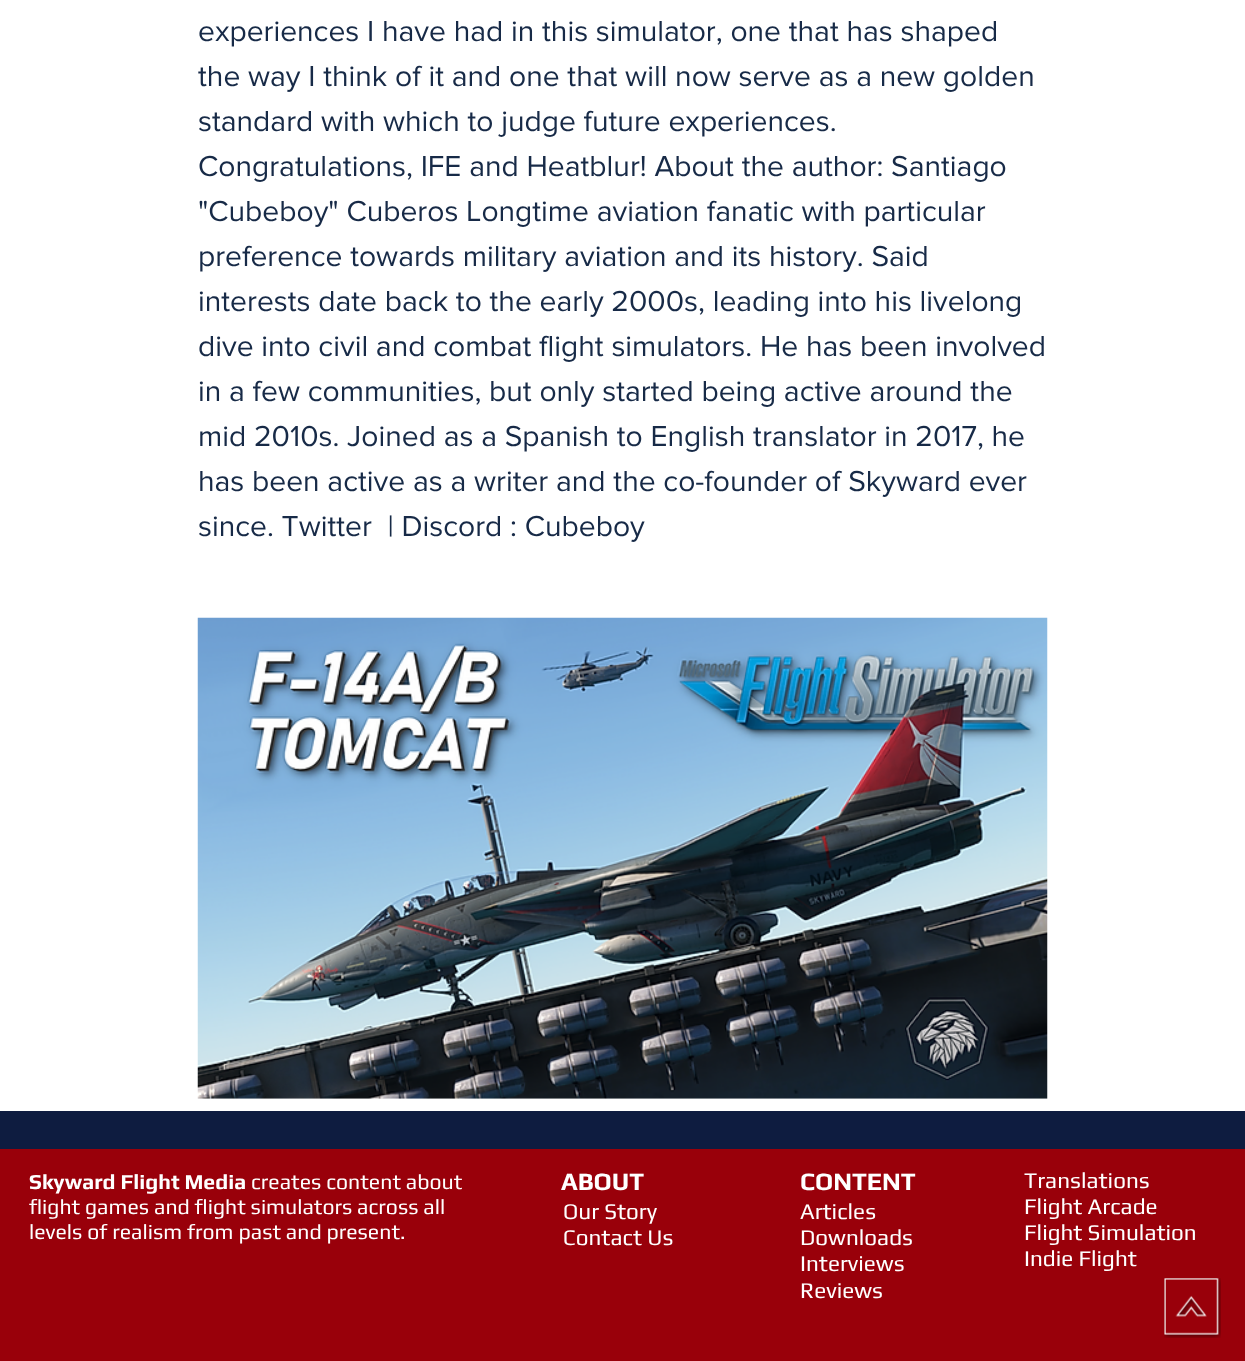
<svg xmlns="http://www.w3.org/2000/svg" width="1245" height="1361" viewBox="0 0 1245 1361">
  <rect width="100%" height="100%" fill="rgb(255,255,255)"/>
  <g font-family="'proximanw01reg'" font-size="30" fill="rgb(23,42,71)">
    <text xml:space="preserve"><tspan x="198" y="41">experiences I have had in this simulator, one that has shaped</tspan><tspan x="198" y="86">the way I think of it and one that will now serve as a new golden</tspan><tspan x="198" y="131">standard with which to judge future experiences.</tspan><tspan x="198" y="176">Congratulations, IFE and Heatblur! About the author: Santiago</tspan><tspan x="198" y="221">"Cubeboy" Cuberos Longtime aviation fanatic with particular</tspan><tspan x="198" y="266">preference towards military aviation and its history. Said</tspan><tspan x="198" y="311">interests date back to the early 2000s, leading into his livelong</tspan><tspan x="198" y="356">dive into civil and combat flight simulators. He has been involved</tspan><tspan x="198" y="401">in a few communities, but only started being active around the</tspan><tspan x="198" y="446">mid 2010s. Joined as a Spanish to English translator in 2017, he</tspan><tspan x="198" y="491">has been active as a writer and the co-founder of Skyward ever</tspan><tspan x="198" y="536">since. Twitter  | Discord : Cubeboy</tspan></text>
  </g>
  <image x="197" y="617" width="851" height="482" href="pic1.png"/>
  <rect x="0" y="1149" width="1245" height="212" fill="rgb(153,0,10)"/>
  <rect x="0" y="1111" width="1245" height="38" fill="rgb(14,28,64)"/>
  <text x="29" y="1189" font-family="Play" font-size="21.25" font-weight="bold" fill="rgb(255,255,255)">Skyward Flight Media</text>
  <g font-family="Play" font-size="21.25" fill="rgb(255,255,255)">
    <text x="251" y="1189">creates content about</text>
    <text>
      <tspan x="29" y="1214">flight games and flight simulators across all</tspan>
      <tspan x="29" y="1239">levels of realism from past and present.</tspan>
    </text>
  </g>
  <text x="561" y="1190" font-family="Play" font-size="25" font-weight="bold" fill="rgb(255,255,255)">ABOUT</text>
  <g font-family="Play" font-size="22.5" fill="rgb(255,255,255)">
    <text>
      <tspan x="563" y="1219">Our Story</tspan>
      <tspan x="563" y="1245">Contact Us</tspan>
    </text>
  </g>
  <text x="800" y="1190" font-family="Play" font-size="25" font-weight="bold" fill="rgb(255,255,255)">CONTENT</text>
  <g font-family="Play" font-size="22.5" fill="rgb(255,255,255)">
    <text>
      <tspan x="800" y="1219">Articles</tspan>
      <tspan x="800" y="1245">Downloads</tspan>
      <tspan x="800" y="1271">Interviews</tspan>
      <tspan x="800" y="1298">Reviews</tspan>
    </text>
    <text>
      <tspan x="1024" y="1188">Translations</tspan>
      <tspan x="1024" y="1214">Flight Arcade</tspan>
      <tspan x="1024" y="1240">Flight Simulation</tspan>
      <tspan x="1024" y="1266">Indie Flight</tspan>
    </text>
  </g>
  <image x="1164" y="1278" width="57" height="60" href="pic2.png"/>
</svg>
